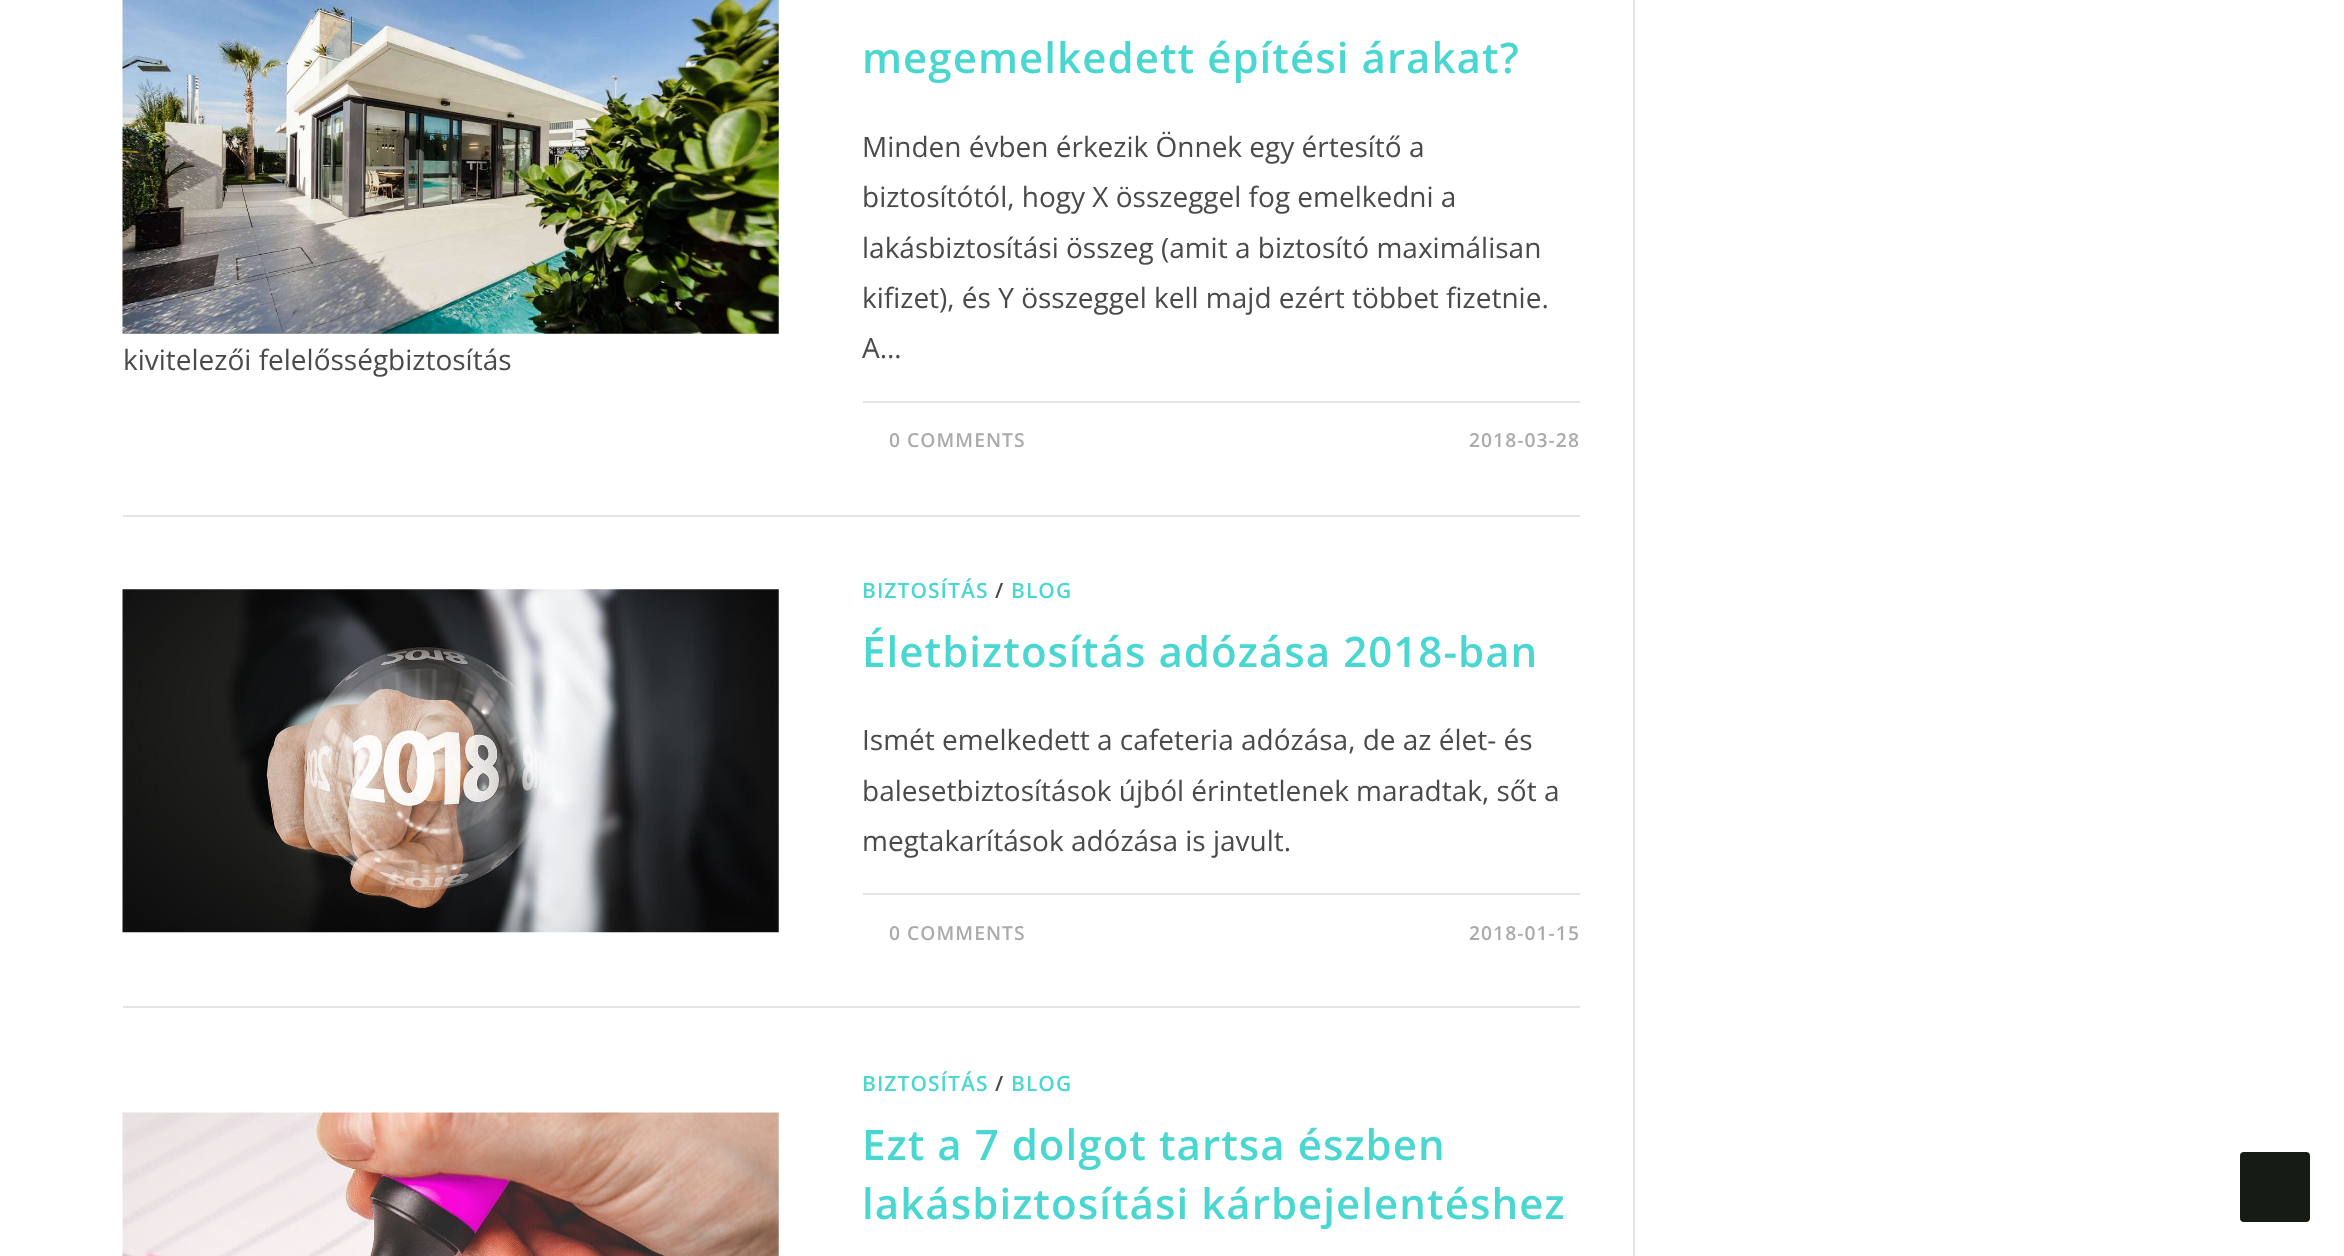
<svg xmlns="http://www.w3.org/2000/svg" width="2344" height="1256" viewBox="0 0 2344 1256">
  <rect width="100%" height="100%" fill="rgb(255,255,255)"/>
  <rect x="1633" y="0" width="2" height="1256" fill="rgb(229,229,229)"/>
  <rect x="123" y="515" width="1457" height="2" fill="rgb(229,229,229)"/>
  <image x="122" y="0" width="657" height="334" href="pic1.png"/>
  <text x="123" y="370" font-family="Open Sans" font-size="28" fill="rgb(74,74,74)">kivitelezői felelősségbiztosítás</text>
  <text x="862" y="73" font-family="Open Sans" font-size="42" font-weight="600" letter-spacing="1.05" fill="rgb(74,215,209)">megemelkedett építési árakat?</text>
  <g font-family="Open Sans" font-size="28" fill="rgb(74,74,74)">
    <text>
      <tspan x="862" y="157">Minden évben érkezik Önnek egy értesítő a</tspan>
      <tspan x="862" y="207">biztosítótól, hogy X összeggel fog emelkedni a</tspan>
      <tspan x="862" y="258">lakásbiztosítási összeg (amit a biztosító maximálisan</tspan>
      <tspan x="862" y="308">kifizet), és Y összeggel kell majd ezért többet fizetnie.</tspan>
      <tspan x="862" y="358">A…</tspan>
    </text>
  </g>
  <rect x="863" y="401" width="717" height="2" fill="rgb(229,229,229)"/>
  <g font-family="Open Sans" font-size="19.25" font-weight="600" letter-spacing="1.05" fill="rgb(171,171,171)">
    <text x="889" y="447">0 COMMENTS</text>
    <text x="1469" y="447">2018-03-28</text>
  </g>
  <rect x="123" y="1006" width="1457" height="2" fill="rgb(229,229,229)"/>
  <image x="122" y="589" width="657" height="344" href="pic2.png"/>
  <text x="862" y="598" font-family="Open Sans" font-size="21" font-weight="600" letter-spacing="1.05" fill="rgb(74,215,209)">BIZTOSÍTÁS</text>
  <text x="995" y="598" font-family="Open Sans" font-size="21" font-weight="600" letter-spacing="1.05" fill="rgb(74,74,74)">/</text>
  <text x="1011" y="598" font-family="Open Sans" font-size="21" font-weight="600" letter-spacing="1.05" fill="rgb(74,215,209)">BLOG</text>
  <text x="862" y="667" font-family="Open Sans" font-size="42" font-weight="600" letter-spacing="1.05" fill="rgb(74,215,209)">Életbiztosítás adózása 2018-ban</text>
  <g font-family="Open Sans" font-size="28" fill="rgb(74,74,74)">
    <text>
      <tspan x="862" y="750">Ismét emelkedett a cafeteria adózása, de az élet- és</tspan>
      <tspan x="862" y="801">balesetbiztosítások újból érintetlenek maradtak, sőt a</tspan>
      <tspan x="862" y="851">megtakarítások adózása is javult.</tspan>
    </text>
  </g>
  <rect x="863" y="893" width="717" height="2" fill="rgb(229,229,229)"/>
  <g font-family="Open Sans" font-size="19.25" font-weight="600" letter-spacing="1.05" fill="rgb(171,171,171)">
    <text x="889" y="940">0 COMMENTS</text>
    <text x="1469" y="940">2018-01-15</text>
  </g>
  <image x="122" y="1112" width="657" height="144" href="pic3.png"/>
  <text x="862" y="1091" font-family="Open Sans" font-size="21" font-weight="600" letter-spacing="1.05" fill="rgb(74,215,209)">BIZTOSÍTÁS</text>
  <text x="995" y="1091" font-family="Open Sans" font-size="21" font-weight="600" letter-spacing="1.05" fill="rgb(74,74,74)">/</text>
  <text x="1011" y="1091" font-family="Open Sans" font-size="21" font-weight="600" letter-spacing="1.05" fill="rgb(74,215,209)">BLOG</text>
  <g font-family="Open Sans" font-size="42" font-weight="600" letter-spacing="1.05" fill="rgb(74,215,209)">
    <text>
      <tspan x="862" y="1160">Ezt a 7 dolgot tartsa észben</tspan>
      <tspan x="862" y="1219">lakásbiztosítási kárbejelentéshez</tspan>
    </text>
  </g>
  <rect x="2240" y="1152" width="70" height="70" rx="4" fill="rgb(22,28,20)"/>
</svg>
